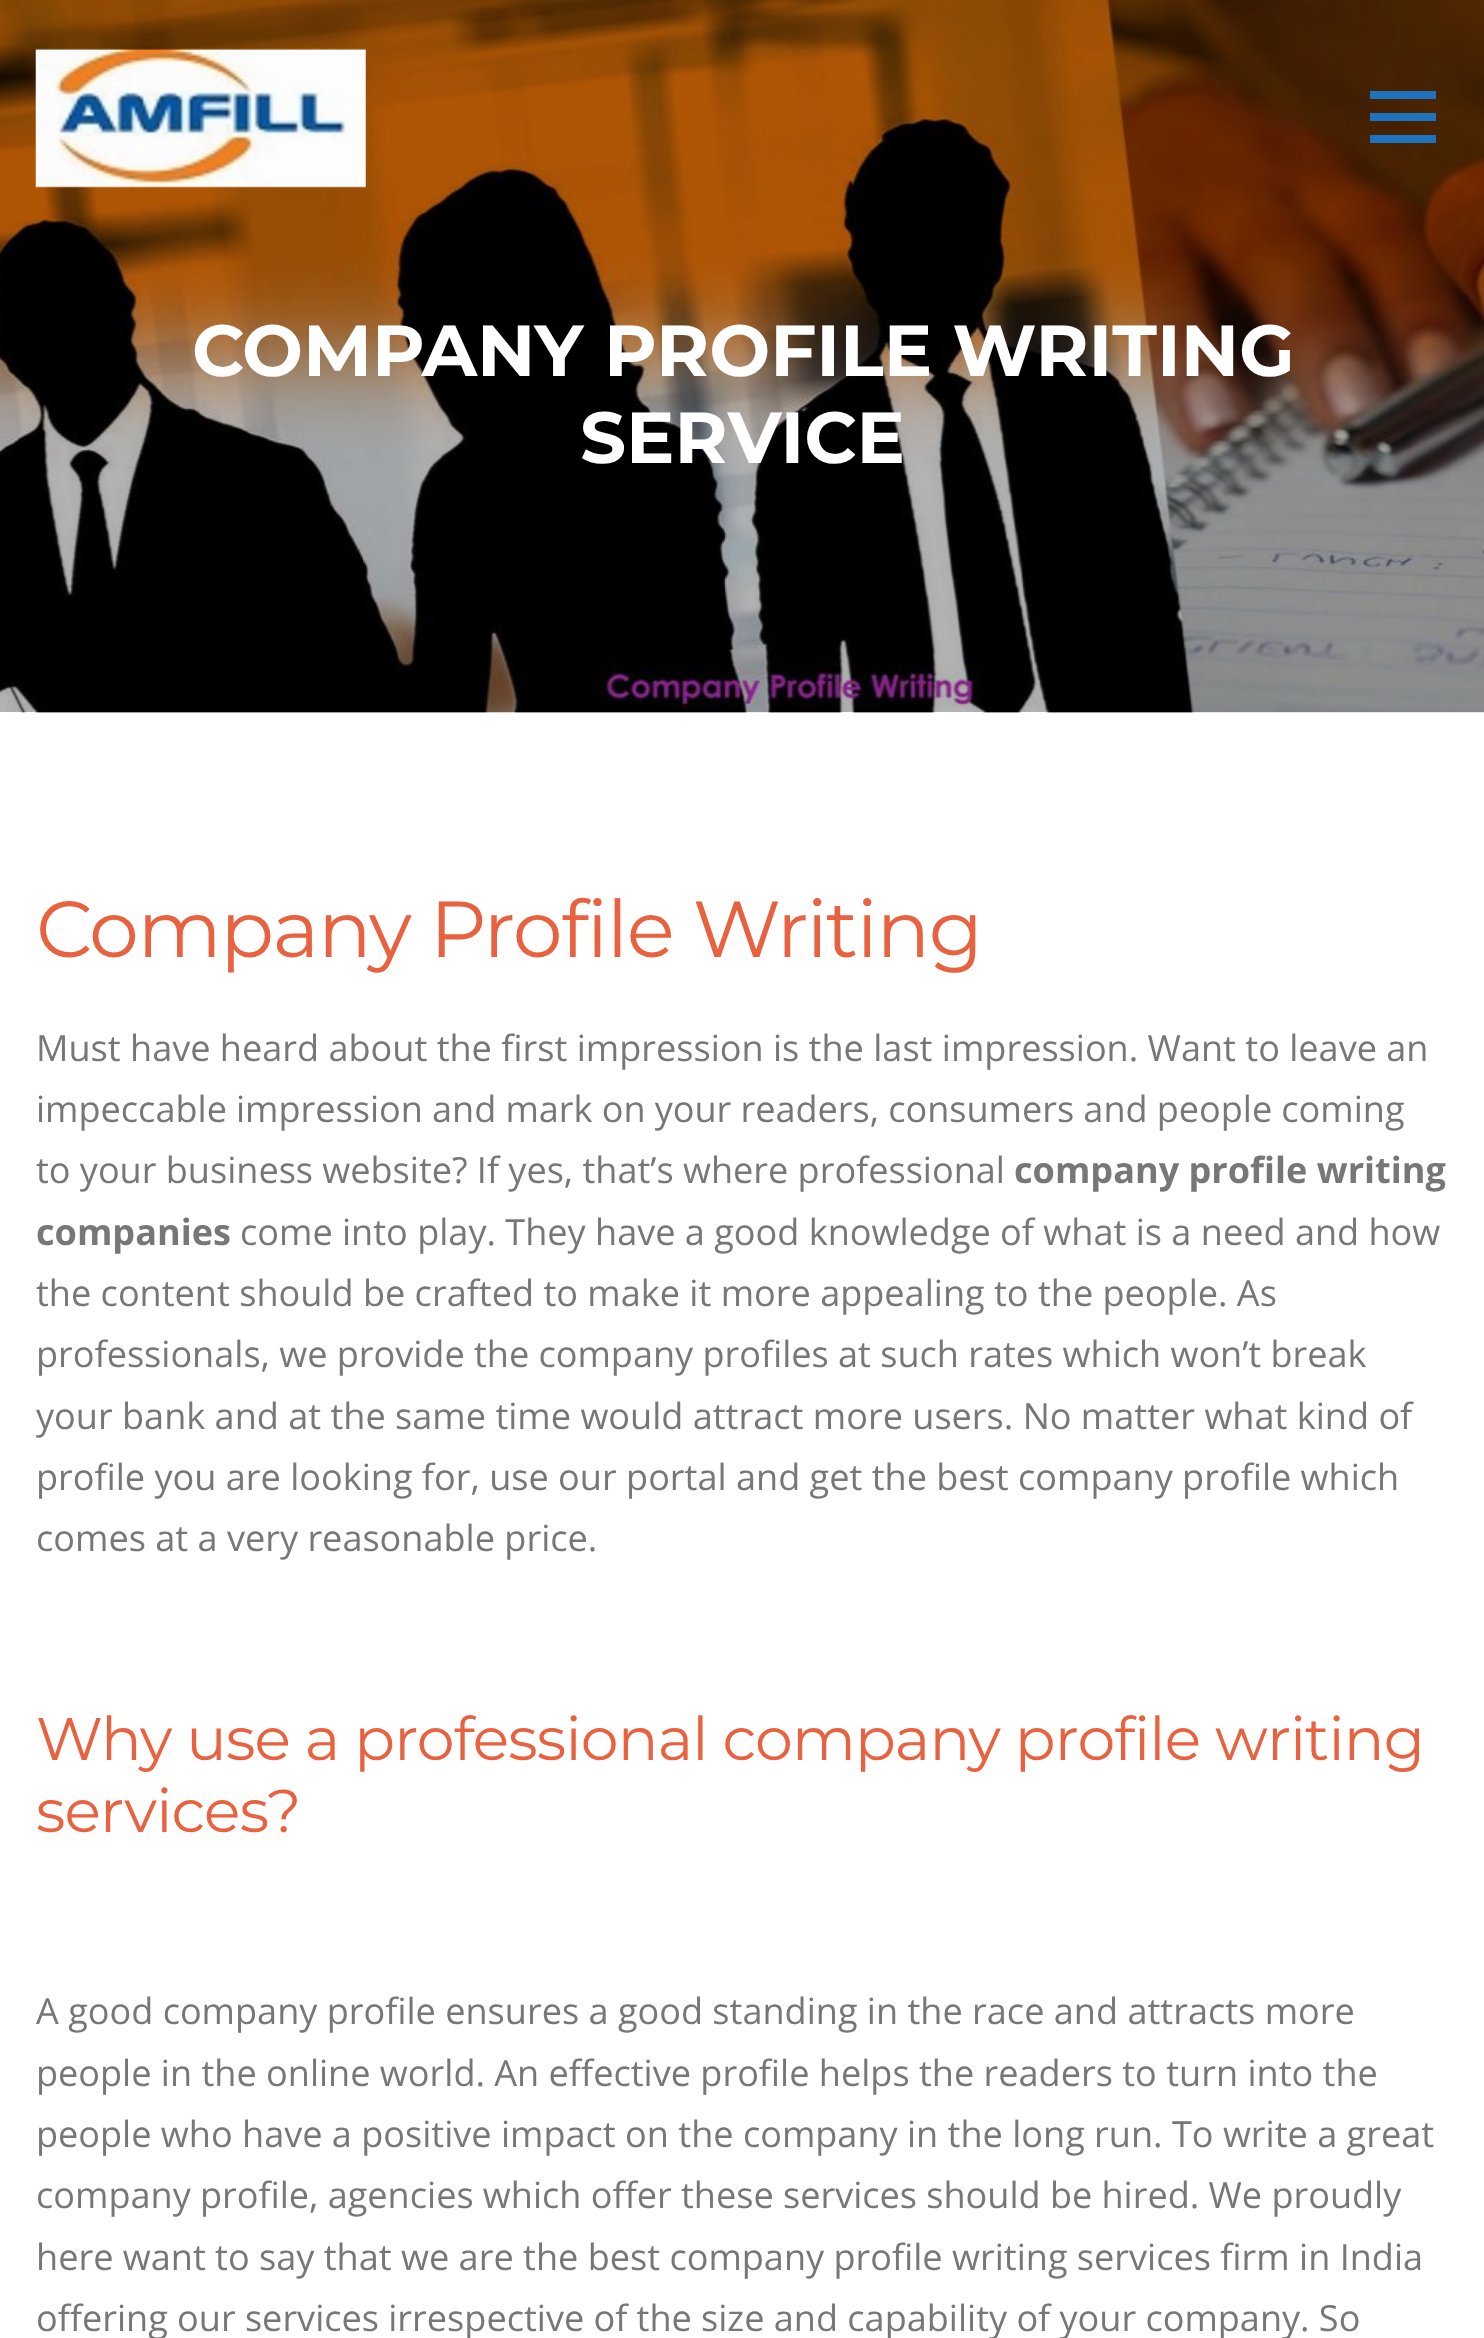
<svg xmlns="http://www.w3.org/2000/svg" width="1484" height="2338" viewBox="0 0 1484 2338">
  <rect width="100%" height="100%" fill="rgb(255,255,255)"/>
  <image x="0" y="0" width="1484" height="713" href="pic2.png"/>
  <image x="35" y="48" width="331" height="140" href="pic1.png"/>
  <rect x="1370" y="113" width="66" height="8" fill="rgb(30,115,190)"/>
  <rect x="1370" y="91" width="66" height="8" fill="rgb(30,115,190)"/>
  <rect x="1370" y="135" width="66" height="8" fill="rgb(30,115,190)"/>
  <g font-family="Montserrat" font-size="72.25" font-weight="bold" fill="rgb(255,255,255)">
    <text x="192" y="376">COMPANY PROFILE WRITING</text>
    <text x="580" y="463">SERVICE</text>
  </g>
  <text x="36" y="957" font-family="Montserrat" font-size="79.4" letter-spacing="-1.4" fill="rgb(232,98,64)">Company Profile Writing</text>
  <g font-family="Open Sans" font-size="36.1" fill="rgb(119,119,119)">
    <text>
      <tspan x="36" y="1061">Must have heard about the first impression is the last impression. Want to leave an</tspan>
      <tspan x="36" y="1122" word-spacing="-0.25">impeccable impression and mark on your readers, consumers and people coming</tspan>
      <tspan x="36" y="1183" word-spacing="-0.1">to your business website? If yes, that’s where professional</tspan>
    </text>
  </g>
  <g font-family="Open Sans" font-size="36.1" font-weight="bold" fill="rgb(119,119,119)">
    <text x="1014" y="1183">company profile writing</text>
    <text x="36" y="1245">companies</text>
  </g>
  <g font-family="Open Sans" font-size="36.1" fill="rgb(119,119,119)">
    <text x="240" y="1245">come into play. They have a good knowledge of what is a need and how</text>
    <text>
      <tspan x="36" y="1306">the content should be crafted to make it more appealing to the people. As</tspan>
      <tspan x="36" y="1367" word-spacing="-0.1">professionals, we provide the company profiles at such rates which won’t break</tspan>
      <tspan x="36" y="1429">your bank and at the same time would attract more users. No matter what kind of</tspan>
      <tspan x="36" y="1490">profile you are looking for, use our portal and get the best company profile which</tspan>
      <tspan x="36" y="1551">comes at a very reasonable price.</tspan>
    </text>
  </g>
  <g font-family="Montserrat" font-size="60.2" letter-spacing="-0.8" fill="rgb(232,98,64)">
    <text>
      <tspan x="36" y="1760" word-spacing="-0.25">Why use a professional company profile writing</tspan>
      <tspan x="36" y="1832">services?</tspan>
    </text>
  </g>
  <g font-family="Open Sans" font-size="36.1" fill="rgb(119,119,119)">
    <text>
      <tspan x="36" y="2024">A good company profile ensures a good standing in the race and attracts more</tspan>
      <tspan x="36" y="2086">people in the online world. An effective profile helps the readers to turn into the</tspan>
      <tspan x="36" y="2147">people who have a positive impact on the company in the long run. To write a great</tspan>
      <tspan x="36" y="2208" word-spacing="-0.1">company profile, agencies which offer these services should be hired. We proudly</tspan>
      <tspan x="36" y="2270">here want to say that we are the best company profile writing services firm in India</tspan>
      <tspan x="36" y="2331" word-spacing="-0.1">offering our services irrespective of the size and capability of your company. So</tspan>
    </text>
  </g>
</svg>
